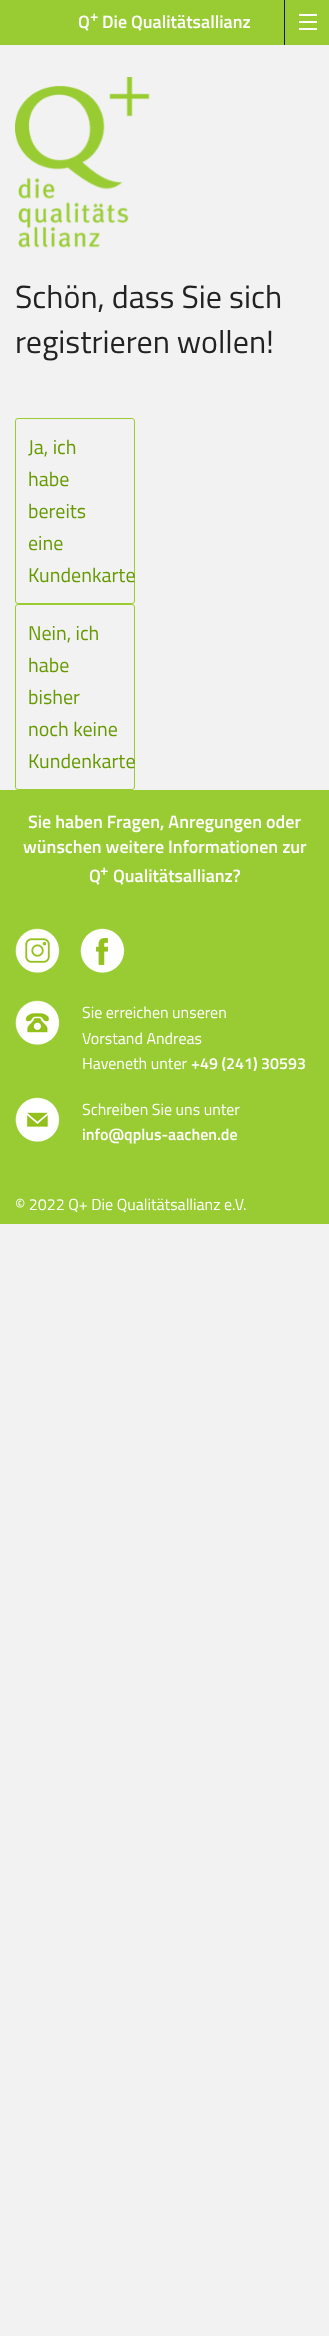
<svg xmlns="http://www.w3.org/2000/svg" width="329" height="2336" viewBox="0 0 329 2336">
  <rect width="100%" height="100%" fill="rgb(242,242,242)"/>
  <rect x="0" y="0" width="329" height="45" fill="rgb(153,204,51)"/>
  <text x="78" y="28" font-family="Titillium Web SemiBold" font-size="18" font-weight="600" fill="rgb(255,255,255)">Q</text>
  <text x="90" y="21" font-family="Titillium Web SemiBold" font-size="15" font-weight="600" fill="rgb(255,255,255)">+</text>
  <text x="102" y="28" font-family="Titillium Web SemiBold" font-size="18" font-weight="600" fill="rgb(255,255,255)">Die Qualitätsallianz</text>
  <rect x="284" y="0" width="1" height="45" fill="rgb(26,26,26)"/>
  <rect x="299" y="28" width="18" height="2" fill="rgb(255,255,255)"/>
  <rect x="299" y="21" width="18" height="2" fill="rgb(255,255,255)"/>
  <rect x="299" y="14" width="18" height="2" fill="rgb(255,255,255)"/>
  <image x="15" y="77" width="135" height="171" href="pic1.png"/>
  <g font-family="Titillium Web" font-size="32" fill="rgb(34,34,34)">
    <text>
      <tspan x="15" y="308">Schön, dass Sie sich</tspan>
      <tspan x="15" y="353">registrieren wollen!</tspan>
    </text>
  </g>
  <rect x="15.5" y="418.5" width="119" height="185" rx="2.5" fill="none" stroke="rgb(153,204,51)"/>
  <g font-family="Titillium Web" font-size="20" fill="rgb(102,153,0)">
    <text>
      <tspan x="28" y="454">Ja, ich</tspan>
      <tspan x="28" y="486">habe</tspan>
      <tspan x="28" y="518">bereits</tspan>
      <tspan x="28" y="550">eine</tspan>
      <tspan x="28" y="582">Kundenkarte</tspan>
    </text>
  </g>
  <rect x="15.5" y="604.5" width="119" height="185" rx="2.5" fill="none" stroke="rgb(153,204,51)"/>
  <g font-family="Titillium Web" font-size="20" fill="rgb(102,153,0)">
    <text>
      <tspan x="28" y="640">Nein, ich</tspan>
      <tspan x="28" y="672">habe</tspan>
      <tspan x="28" y="704">bisher</tspan>
      <tspan x="28" y="736">noch keine</tspan>
      <tspan x="28" y="768">Kundenkarte</tspan>
    </text>
  </g>
  <rect x="0" y="790" width="329" height="394" fill="rgb(153,204,51)"/>
  <g font-family="Titillium Web SemiBold" font-size="18" font-weight="600" fill="rgb(255,255,255)">
    <text x="28" y="828">Sie haben Fragen, Anregungen oder</text>
    <text x="23" y="853">wünschen weitere Informationen zur</text>
    <text x="89" y="882">Q</text>
  </g>
  <text x="100" y="875" font-family="Titillium Web SemiBold" font-size="15" font-weight="600" fill="rgb(255,255,255)">+</text>
  <text x="113" y="882" font-family="Titillium Web SemiBold" font-size="18" font-weight="600" fill="rgb(255,255,255)">Qualitätsallianz?</text>
  <image x="15" y="928" width="45" height="45" href="pic2.png"/>
  <image x="80" y="928" width="45" height="45" href="pic3.png"/>
  <image x="15" y="1000" width="45" height="45" href="pic4.png"/>
  <g font-family="Titillium Web" font-size="16" fill="rgb(255,255,255)">
    <text>
      <tspan x="82" y="1018">Sie erreichen unseren</tspan>
      <tspan x="82" y="1044">Vorstand Andreas</tspan>
      <tspan x="82" y="1069">Haveneth unter</tspan>
    </text>
  </g>
  <text x="191" y="1069" font-family="Titillium Web SemiBold" font-size="16" font-weight="600" fill="rgb(255,255,255)">+49 (241) 30593</text>
  <image x="15" y="1097" width="45" height="45" href="pic5.png"/>
  <text x="82" y="1115" font-family="Titillium Web" font-size="16" fill="rgb(255,255,255)">Schreiben Sie uns unter</text>
  <text x="82" y="1140" font-family="Titillium Web SemiBold" font-size="16" font-weight="600" fill="rgb(255,255,255)">info@qplus-aachen.de</text>
  <rect x="0" y="1184" width="329" height="40" fill="rgb(153,204,51)"/>
  <text x="15" y="1210" font-family="Titillium Web" font-size="16" fill="rgb(255,255,255)">© 2022 Q+ Die Qualitätsallianz e.V.</text>
</svg>
